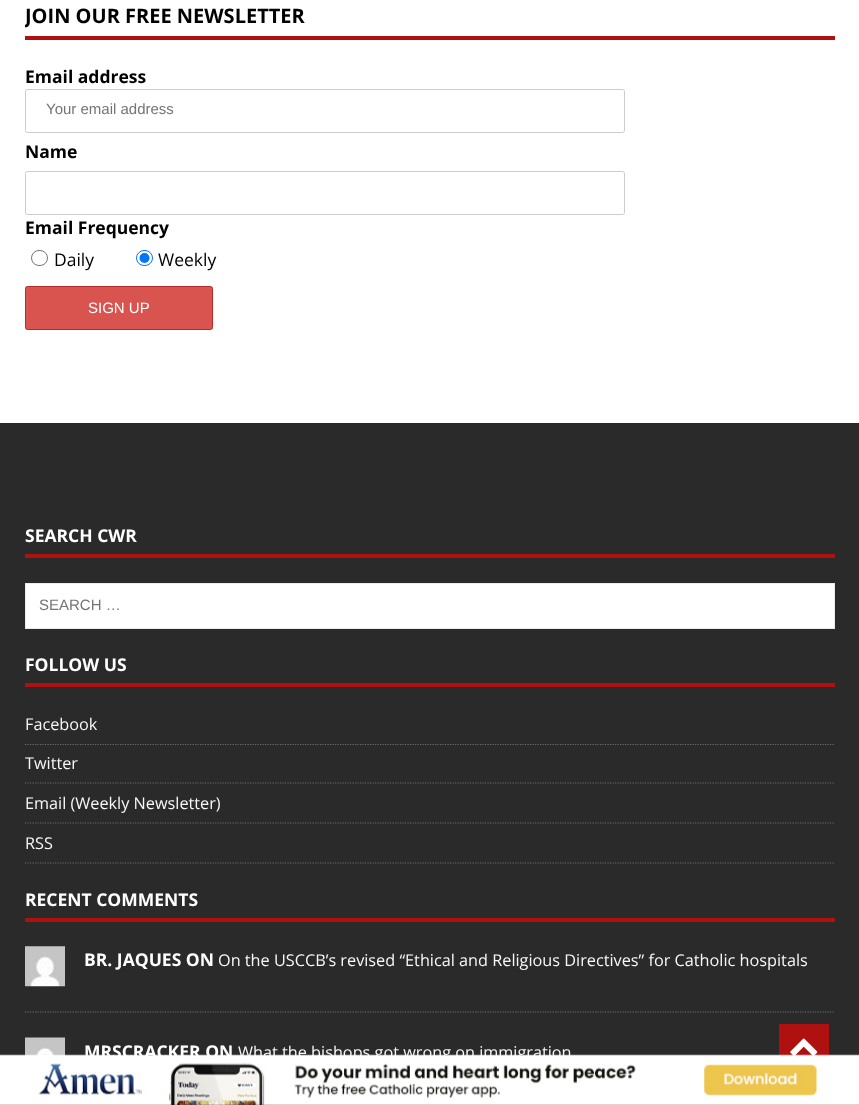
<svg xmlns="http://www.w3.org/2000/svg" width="859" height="1105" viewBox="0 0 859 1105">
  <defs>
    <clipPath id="clip1"><rect x="25" y="4" width="810" height="344"/></clipPath>
  </defs>
  <rect width="100%" height="100%" fill="rgb(255,255,255)"/>
  <rect x="25" y="36" width="810" height="4" fill="rgb(175,17,17)"/>
  <g clip-path="url(#clip1)">
    <text x="25" y="23" font-family="Open Sans" font-size="20" font-weight="bold" fill="rgb(0,0,0)">JOIN OUR FREE NEWSLETTER</text>
  </g>
  <text x="25" y="83" font-family="Open Sans" font-size="17.5" font-weight="bold" fill="rgb(0,0,0)">Email address</text>
  <rect x="25.5" y="89.5" width="599" height="43" rx="2" fill="none" stroke="rgb(204,204,204)"/>
  <text x="46" y="114" font-family="Liberation Sans" font-size="15" fill="rgb(117,117,117)">Your email address</text>
  <text x="25" y="158" font-family="Open Sans" font-size="17.5" font-weight="bold" fill="rgb(0,0,0)">Name</text>
  <rect x="25.5" y="171.5" width="599" height="43" rx="2" fill="none" stroke="rgb(204,204,204)"/>
  <text x="25" y="234" font-family="Open Sans" font-size="17.5" font-weight="bold" fill="rgb(0,0,0)">Email Frequency</text>
  <rect x="31.5" y="250.5" width="16" height="15" rx="7.5" fill="none" stroke="rgb(118,118,118)"/>
  <text x="54" y="266" font-family="Open Sans" font-size="17.5" fill="rgb(0,0,0)">Daily</text>
  <rect x="136.5" y="250.5" width="16" height="15" rx="7.5" fill="none" stroke="rgb(0,117,255)"/>
  <circle cx="144.5" cy="258" r="5" fill="rgb(0,117,255)"/>
  <text x="158" y="266" font-family="Open Sans" font-size="17.5" fill="rgb(0,0,0)">Weekly</text>
  <rect x="25.5" y="286.5" width="187" height="43" rx="2" fill="rgb(217,83,79)" stroke="rgb(181,43,39)"/>
  <text x="88" y="313" font-family="Liberation Sans" font-size="15" fill="rgb(255,255,255)">SIGN UP</text>
  <rect x="0" y="423" width="859" height="682" fill="rgb(42,42,42)"/>
  <rect x="25" y="554" width="810" height="4" fill="rgb(175,17,17)"/>
  <text x="25" y="542" font-family="Open Sans" font-size="17.5" font-weight="bold" fill="rgb(255,255,255)">SEARCH CWR</text>
  <rect x="25.5" y="583.5" width="809" height="45" fill="rgb(255,255,255)" stroke="rgb(235,235,235)"/>
  <text x="39" y="610" font-family="Liberation Sans" font-size="15" fill="rgb(117,117,117)">SEARCH …</text>
  <rect x="25" y="683" width="810" height="4" fill="rgb(175,17,17)"/>
  <text x="25" y="671" font-family="Open Sans" font-size="17.5" font-weight="bold" fill="rgb(255,255,255)">FOLLOW US</text>
  <path d="M25 744.5H835" fill="none" stroke="rgb(106,106,106)" stroke-width="1.2" stroke-dasharray="1.25 1.25"/>
  <text x="25" y="730" font-family="Open Sans" font-size="16.25" fill="rgb(247,247,247)">Facebook</text>
  <path d="M25 783H835" fill="none" stroke="rgb(106,106,106)" stroke-width="1.2" stroke-dasharray="1.25 1.25"/>
  <text x="25" y="769" font-family="Open Sans" font-size="16.25" fill="rgb(247,247,247)">Twitter</text>
  <path d="M25 823H835" fill="none" stroke="rgb(106,106,106)" stroke-width="1.2" stroke-dasharray="1.25 1.25"/>
  <text x="25" y="809" font-family="Open Sans" font-size="16.25" fill="rgb(247,247,247)">Email (Weekly Newsletter)</text>
  <path d="M25 863H835" fill="none" stroke="rgb(106,106,106)" stroke-width="1.2" stroke-dasharray="1.25 1.25"/>
  <text x="25" y="849" font-family="Open Sans" font-size="16.25" fill="rgb(247,247,247)">RSS</text>
  <rect x="25" y="918" width="810" height="4" fill="rgb(175,17,17)"/>
  <text x="25" y="906" font-family="Open Sans" font-size="17.5" font-weight="bold" fill="rgb(255,255,255)">RECENT COMMENTS</text>
  <path d="M25 1012H835" fill="none" stroke="rgb(106,106,106)" stroke-width="1.2" stroke-dasharray="1.25 1.25"/>
  <image x="25" y="946" width="40" height="41" href="pic1.png"/>
  <text x="84" y="966" font-family="Open Sans" font-size="17.5" font-weight="bold" fill="rgb(255,255,255)">BR. JAQUES ON</text>
  <text x="218" y="966" font-family="Open Sans" font-size="16.25" fill="rgb(247,247,247)">On the USCCB’s revised “Ethical and Religious Directives” for Catholic hospitals</text>
  <image x="25" y="1037" width="40" height="19" href="pic2.png"/>
  <text x="84" y="1058" font-family="Open Sans" font-size="17.5" font-weight="bold" fill="rgb(255,255,255)">MRSCRACKER ON</text>
  <text x="238" y="1058" font-family="Open Sans" font-size="16.25" fill="rgb(247,247,247)">What the bishops got wrong on immigration</text>
  <rect x="779" y="1024" width="50" height="32" fill="rgb(175,17,17)"/>
  <image x="790" y="1038" width="28" height="18" href="pic3.png"/>
  <image x="0" y="1054" width="859" height="51" href="pic4.png"/>
</svg>
